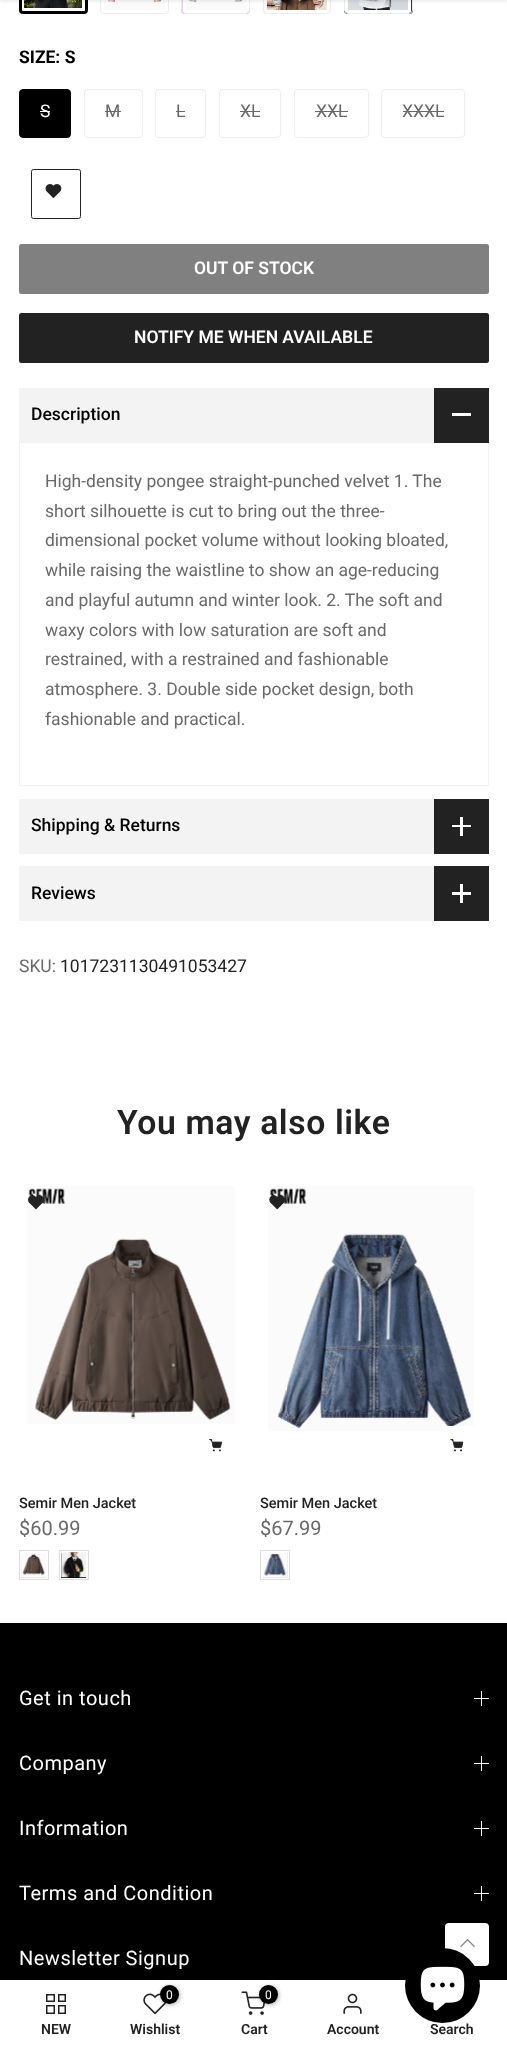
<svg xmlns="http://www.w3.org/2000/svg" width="507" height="2048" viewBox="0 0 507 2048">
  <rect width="100%" height="100%" fill="rgb(255,255,255)"/>
  <image x="24" y="0" width="61" height="11" href="pic1.png"/>
  <rect x="22.5" y="-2.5" width="61" height="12" fill="none" stroke="rgb(255,255,255)" stroke-width="3"/>
  <rect x="20.5" y="-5.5" width="66" height="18" rx="2.5" fill="none" stroke="rgb(0,0,0)" stroke-width="3"/>
  <image x="101" y="0" width="67" height="13" href="pic2.png"/>
  <rect x="102.5" y="-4.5" width="64" height="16" rx="1" fill="none" stroke="rgb(255,255,255)" stroke-width="3"/>
  <rect x="100.5" y="-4.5" width="68" height="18" rx="3.5" fill="none" stroke="rgb(236,237,241)"/>
  <rect x="181" y="-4" width="69" height="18" rx="4" fill="rgb(238,130,238)"/>
  <image x="182" y="0" width="67" height="13" href="pic3.png"/>
  <rect x="184.5" y="-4.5" width="63" height="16" rx="1" fill="none" stroke="rgb(255,255,255)" stroke-width="3"/>
  <rect x="181.5" y="-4.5" width="68" height="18" rx="3.5" fill="none" stroke="rgb(236,237,241)"/>
  <image x="263" y="0" width="67" height="13" href="pic4.png"/>
  <rect x="265.5" y="-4.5" width="63" height="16" rx="1" fill="none" stroke="rgb(255,255,255)" stroke-width="3"/>
  <rect x="263.5" y="-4.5" width="67" height="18" rx="3.5" fill="none" stroke="rgb(236,237,241)"/>
  <rect x="344" y="-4" width="69" height="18" rx="4" fill="rgb(0,0,0)"/>
  <image x="345" y="0" width="67" height="13" href="pic5.png"/>
  <rect x="346.5" y="-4.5" width="63" height="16" rx="1" fill="none" stroke="rgb(255,255,255)" stroke-width="3"/>
  <rect x="344.5" y="-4.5" width="68" height="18" rx="3.5" fill="none" stroke="rgb(236,237,241)"/>
  <rect x="0" y="-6" width="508" height="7" fill="rgba(0,0,0,0.1)" filter="blur(2px)"/>
  <text x="19" y="63" font-family="Roboto" font-size="17.5" font-weight="bold" fill="rgb(0,0,0)">SIZE: S</text>
  <rect x="19.5" y="89.5" width="51" height="48" rx="3.5" fill="rgb(0,0,0)" stroke="rgb(0,0,0)"/>
  <text x="40" y="117" font-family="Roboto" font-size="17.5" fill="rgb(255,255,255)">S</text>
  <rect x="40" y="111" width="10" height="1" fill="rgb(255,255,255)"/>
  <rect x="84.5" y="89.5" width="58" height="48" rx="3.5" fill="none" stroke="rgb(236,237,241)"/>
  <text x="105" y="117" font-family="Roboto" font-size="17.5" fill="rgb(105,105,105)">M</text>
  <rect x="105" y="111" width="16" height="1" fill="rgb(105,105,105)"/>
  <rect x="155.5" y="89.5" width="50" height="48" rx="3.5" fill="none" stroke="rgb(236,237,241)"/>
  <text x="176" y="117" font-family="Roboto" font-size="17.5" fill="rgb(105,105,105)">L</text>
  <rect x="176" y="111" width="9" height="1" fill="rgb(105,105,105)"/>
  <rect x="219.5" y="89.5" width="61" height="48" rx="3.5" fill="none" stroke="rgb(236,237,241)"/>
  <text x="240" y="117" font-family="Roboto" font-size="17.5" fill="rgb(105,105,105)">XL</text>
  <rect x="240" y="111" width="20" height="1" fill="rgb(105,105,105)"/>
  <rect x="294.5" y="89.5" width="74" height="48" rx="3.5" fill="none" stroke="rgb(236,237,241)"/>
  <text x="316" y="117" font-family="Roboto" font-size="17.5" fill="rgb(105,105,105)">XXL</text>
  <rect x="315" y="111" width="33" height="1" fill="rgb(105,105,105)"/>
  <rect x="381.5" y="89.5" width="83" height="48" rx="3.5" fill="none" stroke="rgb(236,237,241)"/>
  <text x="402" y="117" font-family="Roboto" font-size="17.5" fill="rgb(105,105,105)">XXXL</text>
  <rect x="403" y="111" width="41" height="1" fill="rgb(105,105,105)"/>
  <rect x="31.5" y="169.5" width="49" height="49" rx="2" fill="none" stroke="rgb(34,34,34)"/>
  <image x="45" y="184" width="17" height="14" href="pic6.png"/>
  <rect x="19" y="244" width="470" height="50" rx="2.5" fill="rgb(128,128,128)"/>
  <text x="194" y="274" font-family="Roboto" font-size="17.5" font-weight="600" fill="rgb(255,255,255)">OUT OF STOCK</text>
  <rect x="19" y="313" width="470" height="50" rx="2.5" fill="rgb(34,34,34)"/>
  <text x="134" y="343" font-family="Roboto" font-size="17.5" font-weight="600" fill="rgb(255,255,255)">NOTIFY ME WHEN AVAILABLE</text>
  <rect x="19" y="388" width="415" height="55" fill="rgb(243,243,243)"/>
  <text x="31" y="420" font-family="Roboto" font-size="17.5" font-weight="500" fill="rgb(0,0,0)">Description</text>
  <path d="M489 442V786L488 785V442Z" fill="rgba(105,105,105,0.08)"/>
  <rect x="434" y="388" width="55" height="55" fill="rgb(34,34,34)"/>
  <rect x="452" y="413" width="19" height="3" fill="rgb(255,255,255)"/>
  <path d="M489 786H19L20 785H488Z" fill="rgba(105,105,105,0.08)"/>
  <path d="M19 786V442H20V785Z" fill="rgba(105,105,105,0.08)"/>
  <g font-family="Roboto" font-size="17.5" fill="rgb(105,105,105)">
    <text>
      <tspan x="45" y="487">High-density pongee straight-punched velvet 1. The</tspan>
      <tspan x="45" y="517">short silhouette is cut to bring out the three-</tspan>
      <tspan x="45" y="546">dimensional pocket volume without looking bloated,</tspan>
      <tspan x="45" y="576">while raising the waistline to show an age-reducing</tspan>
      <tspan x="45" y="606">and playful autumn and winter look. 2. The soft and</tspan>
      <tspan x="45" y="636">waxy colors with low saturation are soft and</tspan>
      <tspan x="45" y="665">restrained, with a restrained and fashionable</tspan>
      <tspan x="45" y="695">atmosphere. 3. Double side pocket design, both</tspan>
      <tspan x="45" y="725">fashionable and practical.</tspan>
    </text>
  </g>
  <rect x="19" y="799" width="415" height="55" fill="rgb(243,243,243)"/>
  <text x="31" y="831" font-family="Roboto" font-size="17.5" font-weight="500" fill="rgb(0,0,0)">Shipping &amp; Returns</text>
  <rect x="434" y="799" width="55" height="55" fill="rgb(34,34,34)"/>
  <rect x="460" y="817" width="3" height="19" fill="rgb(255,255,255)"/>
  <rect x="452" y="825" width="19" height="2" fill="rgb(255,255,255)"/>
  <rect x="19" y="866" width="415" height="55" fill="rgb(243,243,243)"/>
  <text x="31" y="899" font-family="Roboto" font-size="17.5" font-weight="500" fill="rgb(0,0,0)">Reviews</text>
  <rect x="434" y="866" width="55" height="55" fill="rgb(34,34,34)"/>
  <rect x="460" y="884" width="3" height="19" fill="rgb(255,255,255)"/>
  <rect x="452" y="892" width="19" height="3" fill="rgb(255,255,255)"/>
  <text x="19" y="972" font-family="Roboto" font-size="17.5" fill="rgb(105,105,105)">SKU:</text>
  <text x="60" y="972" font-family="Roboto" font-size="17.5" fill="rgb(34,34,34)">1017231130491053427</text>
  <text x="117" y="1134" font-family="Roboto" font-size="33.75" font-weight="600" letter-spacing="0.6" fill="rgb(34,34,34)">You may also like</text>
  <image x="27" y="1186" width="208" height="238" href="pic7.png"/>
  <image x="28" y="1195" width="16" height="15" href="pic8.png"/>
  <image x="209" y="1439" width="13" height="13" href="pic9.png"/>
  <text x="19" y="1508" font-family="Roboto" font-size="14.5" font-weight="500" fill="rgb(34,34,34)">Semir Men Jacket</text>
  <text x="19" y="1535" font-family="Roboto" font-size="20" fill="rgb(105,105,105)">$60.99</text>
  <rect x="19.5" y="1550.5" width="29" height="29" fill="none" stroke="rgb(221,221,221)"/>
  <rect x="21" y="1553" width="25" height="25" fill="rgb(229,229,229)"/>
  <image x="21" y="1553" width="25" height="25" href="pic10.png"/>
  <rect x="59.5" y="1550.5" width="29" height="29" fill="none" stroke="rgb(221,221,221)"/>
  <rect x="61" y="1553" width="25" height="25" fill="rgb(0,0,0)"/>
  <image x="61" y="1552" width="25" height="26" href="pic11.png"/>
  <image x="268" y="1186" width="206" height="245" href="pic12.png"/>
  <image x="269" y="1195" width="16" height="15" href="pic13.png"/>
  <rect x="438" y="1426" width="45" height="45" rx="10" fill="rgb(255,255,255)"/>
  <image x="450" y="1439" width="14" height="13" href="pic14.png"/>
  <text x="260" y="1508" font-family="Roboto" font-size="14.5" font-weight="500" fill="rgb(34,34,34)">Semir Men Jacket</text>
  <text x="260" y="1535" font-family="Roboto" font-size="20" fill="rgb(105,105,105)">$67.99</text>
  <rect x="260.5" y="1550.5" width="29" height="29" fill="none" stroke="rgb(221,221,221)"/>
  <rect x="263" y="1553" width="25" height="25" fill="rgb(229,229,229)"/>
  <image x="263" y="1553" width="25" height="25" href="pic15.png"/>
  <rect x="0" y="1623" width="507" height="357" fill="rgb(0,0,0)"/>
  <text x="19" y="1705" font-family="Roboto" font-size="20" letter-spacing="0.5" fill="rgb(255,255,255)">Get in touch</text>
  <rect x="481" y="1691" width="1" height="15" fill="rgb(255,255,255)"/>
  <rect x="474" y="1698" width="15" height="1" fill="rgb(255,255,255)"/>
  <text x="19" y="1770" font-family="Roboto" font-size="20" letter-spacing="0.5" fill="rgb(255,255,255)">Company</text>
  <rect x="481" y="1756" width="1" height="15" fill="rgb(255,255,255)"/>
  <rect x="474" y="1763" width="15" height="1" fill="rgb(255,255,255)"/>
  <text x="19" y="1835" font-family="Roboto" font-size="20" letter-spacing="0.5" fill="rgb(255,255,255)">Information</text>
  <rect x="481" y="1821" width="1" height="15" fill="rgb(255,255,255)"/>
  <rect x="474" y="1828" width="15" height="1" fill="rgb(255,255,255)"/>
  <text x="19" y="1900" font-family="Roboto" font-size="20" letter-spacing="0.5" fill="rgb(255,255,255)">Terms and Condition</text>
  <rect x="481" y="1886" width="1" height="15" fill="rgb(255,255,255)"/>
  <rect x="474" y="1893" width="15" height="1" fill="rgb(255,255,255)"/>
  <text x="19" y="1965" font-family="Roboto" font-size="20" letter-spacing="0.5" fill="rgb(255,255,255)">Newsletter Signup</text>
  <rect x="445" y="1923" width="44" height="43" rx="4" fill="rgb(255,255,255)"/>
  <image x="460" y="1939" width="15" height="9" href="pic16.png"/>
  <circle cx="442.5" cy="1985.5" r="37.5" fill="rgb(0,0,0)"/>
  <image x="420" y="1966" width="45" height="45" href="pic17.png"/>
  <rect x="46.75" y="1994.75" width="7.5" height="6.5" fill="none" stroke="rgb(34,34,34)" stroke-width="1.5"/>
  <rect x="58.75" y="1994.75" width="6.5" height="6.5" fill="none" stroke="rgb(34,34,34)" stroke-width="1.5"/>
  <rect x="46.75" y="2005.75" width="7.5" height="7.5" fill="none" stroke="rgb(34,34,34)" stroke-width="1.5"/>
  <rect x="58.75" y="2005.75" width="6.5" height="7.5" fill="none" stroke="rgb(34,34,34)" stroke-width="1.5"/>
  <text x="41" y="2034" font-family="Roboto" font-size="14" font-weight="600" fill="rgb(34,34,34)">NEW</text>
  <image x="143" y="1993" width="23" height="22" href="pic18.png"/>
  <rect x="161" y="1986" width="19" height="19" rx="9.5" fill="rgba(0,0,0,0.3)" filter="blur(2px)"/>
  <circle cx="169.5" cy="1994.5" r="9.5" fill="rgb(0,0,0)"/>
  <text x="166" y="1999" font-family="Roboto" font-size="12" fill="rgb(255,255,255)">0</text>
  <text x="130" y="2034" font-family="Roboto" font-size="14" font-weight="600" fill="rgb(34,34,34)">Wishlist</text>
  <image x="241" y="1991" width="24" height="24" href="pic19.png"/>
  <rect x="260" y="1986" width="19" height="19" rx="9.5" fill="rgba(0,0,0,0.3)" filter="blur(2px)"/>
  <circle cx="268.5" cy="1994.5" r="9.5" fill="rgb(0,0,0)"/>
  <text x="265" y="1999" font-family="Roboto" font-size="12" fill="rgb(255,255,255)">0</text>
  <text x="241" y="2034" font-family="Roboto" font-size="14" font-weight="600" fill="rgb(34,34,34)">Cart</text>
  <image x="343" y="1993" width="19" height="21" href="pic20.png"/>
  <g font-family="Roboto" font-size="14" font-weight="600" fill="rgb(34,34,34)">
    <text x="327" y="2034">Account</text>
    <text x="430" y="2034">Search</text>
  </g>
</svg>
